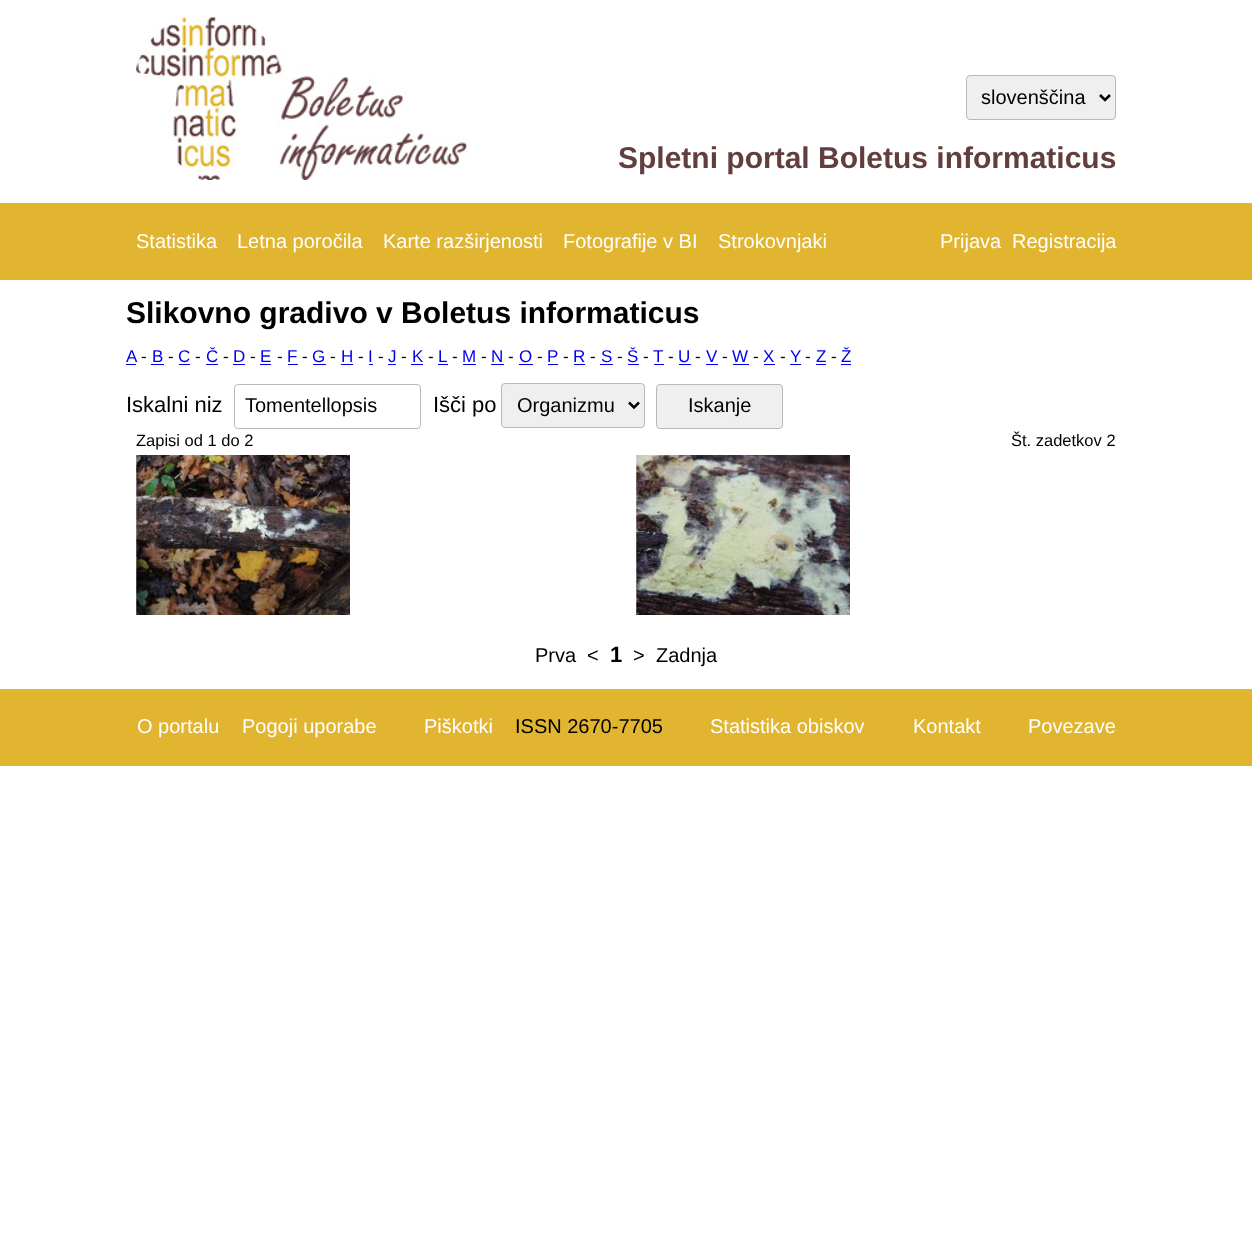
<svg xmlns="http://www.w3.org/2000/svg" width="1252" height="1234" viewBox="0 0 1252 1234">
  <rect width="100%" height="100%" fill="rgb(255,255,255)"/>
  <image x="136" y="17" width="331" height="163" href="pic1.png"/>
  <rect x="966.5" y="75.5" width="149" height="44" rx="3.5" fill="rgb(239,239,239)" stroke="rgb(185,185,185)"/>
  <path d="M1100 95L1105 100L1110 95" fill="none" stroke="rgb(0,0,0)" stroke-width="2.5"/>
  <text x="981" y="104" font-family="Liberation Sans" font-size="20" fill="rgb(0,0,0)">slovenščina</text>
  <text x="618" y="168" font-family="Liberation Sans" font-size="30" font-weight="bold" fill="rgb(98,62,62)">Spletni portal Boletus informaticus</text>
  <rect x="0" y="203" width="1252" height="77" fill="rgb(225,181,47)"/>
  <g font-family="Liberation Sans" font-size="20" fill="rgb(255,255,255)">
    <text x="136" y="248">Statistika</text>
    <text x="237" y="248">Letna poročila</text>
    <text x="383" y="248">Karte razširjenosti</text>
    <text x="563" y="248">Fotografije v BI</text>
    <text x="718" y="248">Strokovnjaki</text>
    <text x="940" y="248">Prijava</text>
    <text x="1012" y="248">Registracija</text>
  </g>
  <text x="126" y="323" font-family="Liberation Sans" font-size="30" font-weight="bold" fill="rgb(0,0,0)">Slikovno gradivo v Boletus informaticus</text>
  <text x="126" y="362" font-family="Liberation Sans" font-size="17" fill="rgb(0,0,238)">A</text>
  <rect x="126" y="364" width="10" height="1" fill="rgb(0,0,238)"/>
  <text x="141" y="362" font-family="Liberation Sans" font-size="17" fill="rgb(0,0,0)">-</text>
  <text x="152" y="362" font-family="Liberation Sans" font-size="17" fill="rgb(0,0,238)">B</text>
  <rect x="151" y="364" width="13" height="1" fill="rgb(0,0,238)"/>
  <text x="168" y="362" font-family="Liberation Sans" font-size="17" fill="rgb(0,0,0)">-</text>
  <text x="178" y="362" font-family="Liberation Sans" font-size="17" fill="rgb(0,0,238)">C</text>
  <rect x="179" y="364" width="11" height="1" fill="rgb(0,0,238)"/>
  <text x="195" y="362" font-family="Liberation Sans" font-size="17" fill="rgb(0,0,0)">-</text>
  <text x="206" y="362" font-family="Liberation Sans" font-size="17" fill="rgb(0,0,238)">Č</text>
  <rect x="206" y="364" width="12" height="1" fill="rgb(0,0,238)"/>
  <text x="223" y="362" font-family="Liberation Sans" font-size="17" fill="rgb(0,0,0)">-</text>
  <text x="233" y="362" font-family="Liberation Sans" font-size="17" fill="rgb(0,0,238)">D</text>
  <rect x="233" y="364" width="12" height="1" fill="rgb(0,0,238)"/>
  <text x="250" y="362" font-family="Liberation Sans" font-size="17" fill="rgb(0,0,0)">-</text>
  <text x="260" y="362" font-family="Liberation Sans" font-size="17" fill="rgb(0,0,238)">E</text>
  <rect x="260" y="364" width="11" height="1" fill="rgb(0,0,238)"/>
  <text x="277" y="362" font-family="Liberation Sans" font-size="17" fill="rgb(0,0,0)">-</text>
  <text x="287" y="362" font-family="Liberation Sans" font-size="17" fill="rgb(0,0,238)">F</text>
  <rect x="288" y="364" width="10" height="1" fill="rgb(0,0,238)"/>
  <text x="302" y="362" font-family="Liberation Sans" font-size="17" fill="rgb(0,0,0)">-</text>
  <text x="312" y="362" font-family="Liberation Sans" font-size="17" fill="rgb(0,0,238)">G</text>
  <rect x="313" y="364" width="13" height="1" fill="rgb(0,0,238)"/>
  <text x="330" y="362" font-family="Liberation Sans" font-size="17" fill="rgb(0,0,0)">-</text>
  <text x="341" y="362" font-family="Liberation Sans" font-size="17" fill="rgb(0,0,238)">H</text>
  <rect x="341" y="364" width="12" height="1" fill="rgb(0,0,238)"/>
  <text x="358" y="362" font-family="Liberation Sans" font-size="17" fill="rgb(0,0,0)">-</text>
  <text x="368" y="362" font-family="Liberation Sans" font-size="17" fill="rgb(0,0,238)">I</text>
  <rect x="369" y="364" width="4" height="1" fill="rgb(0,0,238)"/>
  <text x="378" y="362" font-family="Liberation Sans" font-size="17" fill="rgb(0,0,0)">-</text>
  <text x="388" y="362" font-family="Liberation Sans" font-size="17" fill="rgb(0,0,238)">J</text>
  <rect x="388" y="364" width="8" height="1" fill="rgb(0,0,238)"/>
  <text x="401" y="362" font-family="Liberation Sans" font-size="17" fill="rgb(0,0,0)">-</text>
  <text x="412" y="362" font-family="Liberation Sans" font-size="17" fill="rgb(0,0,238)">K</text>
  <rect x="411" y="364" width="12" height="1" fill="rgb(0,0,238)"/>
  <text x="428" y="362" font-family="Liberation Sans" font-size="17" fill="rgb(0,0,0)">-</text>
  <text x="438" y="362" font-family="Liberation Sans" font-size="17" fill="rgb(0,0,238)">L</text>
  <rect x="438" y="364" width="10" height="1" fill="rgb(0,0,238)"/>
  <text x="452" y="362" font-family="Liberation Sans" font-size="17" fill="rgb(0,0,0)">-</text>
  <text x="462" y="362" font-family="Liberation Sans" font-size="17" fill="rgb(0,0,238)">M</text>
  <rect x="463" y="364" width="13" height="1" fill="rgb(0,0,238)"/>
  <text x="481" y="362" font-family="Liberation Sans" font-size="17" fill="rgb(0,0,0)">-</text>
  <text x="491" y="362" font-family="Liberation Sans" font-size="17" fill="rgb(0,0,238)">N</text>
  <rect x="491" y="364" width="13" height="1" fill="rgb(0,0,238)"/>
  <text x="508" y="362" font-family="Liberation Sans" font-size="17" fill="rgb(0,0,0)">-</text>
  <text x="519" y="362" font-family="Liberation Sans" font-size="17" fill="rgb(0,0,238)">O</text>
  <rect x="519" y="364" width="14" height="1" fill="rgb(0,0,238)"/>
  <text x="537" y="362" font-family="Liberation Sans" font-size="17" fill="rgb(0,0,0)">-</text>
  <text x="547" y="362" font-family="Liberation Sans" font-size="17" fill="rgb(0,0,238)">P</text>
  <rect x="548" y="364" width="10" height="1" fill="rgb(0,0,238)"/>
  <text x="563" y="362" font-family="Liberation Sans" font-size="17" fill="rgb(0,0,0)">-</text>
  <text x="573" y="362" font-family="Liberation Sans" font-size="17" fill="rgb(0,0,238)">R</text>
  <rect x="574" y="364" width="11" height="1" fill="rgb(0,0,238)"/>
  <text x="590" y="362" font-family="Liberation Sans" font-size="17" fill="rgb(0,0,0)">-</text>
  <text x="601" y="362" font-family="Liberation Sans" font-size="17" fill="rgb(0,0,238)">S</text>
  <rect x="600" y="364" width="13" height="1" fill="rgb(0,0,238)"/>
  <text x="617" y="362" font-family="Liberation Sans" font-size="17" fill="rgb(0,0,0)">-</text>
  <text x="627" y="362" font-family="Liberation Sans" font-size="17" fill="rgb(0,0,238)">Š</text>
  <rect x="628" y="364" width="11" height="1" fill="rgb(0,0,238)"/>
  <text x="643" y="362" font-family="Liberation Sans" font-size="17" fill="rgb(0,0,0)">-</text>
  <text x="653" y="362" font-family="Liberation Sans" font-size="17" fill="rgb(0,0,238)">T</text>
  <rect x="654" y="364" width="10" height="1" fill="rgb(0,0,238)"/>
  <text x="668" y="362" font-family="Liberation Sans" font-size="17" fill="rgb(0,0,0)">-</text>
  <text x="678" y="362" font-family="Liberation Sans" font-size="17" fill="rgb(0,0,238)">U</text>
  <rect x="679" y="364" width="12" height="1" fill="rgb(0,0,238)"/>
  <text x="695" y="362" font-family="Liberation Sans" font-size="17" fill="rgb(0,0,0)">-</text>
  <text x="706" y="362" font-family="Liberation Sans" font-size="17" fill="rgb(0,0,238)">V</text>
  <rect x="706" y="364" width="12" height="1" fill="rgb(0,0,238)"/>
  <text x="722" y="362" font-family="Liberation Sans" font-size="17" fill="rgb(0,0,0)">-</text>
  <text x="732" y="362" font-family="Liberation Sans" font-size="17" fill="rgb(0,0,238)">W</text>
  <rect x="733" y="364" width="16" height="1" fill="rgb(0,0,238)"/>
  <text x="753" y="362" font-family="Liberation Sans" font-size="17" fill="rgb(0,0,0)">-</text>
  <text x="763" y="362" font-family="Liberation Sans" font-size="17" fill="rgb(0,0,238)">X</text>
  <rect x="764" y="364" width="11" height="1" fill="rgb(0,0,238)"/>
  <text x="780" y="362" font-family="Liberation Sans" font-size="17" fill="rgb(0,0,0)">-</text>
  <text x="790" y="362" font-family="Liberation Sans" font-size="17" fill="rgb(0,0,238)">Y</text>
  <rect x="790" y="364" width="11" height="1" fill="rgb(0,0,238)"/>
  <text x="805" y="362" font-family="Liberation Sans" font-size="17" fill="rgb(0,0,0)">-</text>
  <text x="816" y="362" font-family="Liberation Sans" font-size="17" fill="rgb(0,0,238)">Z</text>
  <rect x="816" y="364" width="10" height="1" fill="rgb(0,0,238)"/>
  <text x="831" y="362" font-family="Liberation Sans" font-size="17" fill="rgb(0,0,0)">-</text>
  <text x="841" y="362" font-family="Liberation Sans" font-size="17" fill="rgb(0,0,238)">Ž</text>
  <rect x="841" y="364" width="10" height="1" fill="rgb(0,0,238)"/>
  <text x="126" y="412" font-family="Liberation Sans" font-size="22" fill="rgb(0,0,0)">Iskalni niz</text>
  <rect x="234.5" y="384.5" width="186" height="44" rx="3.5" fill="none" stroke="rgb(185,185,185)"/>
  <text x="245" y="412" font-family="Liberation Sans" font-size="20" fill="rgb(0,0,0)">Tomentellopsis</text>
  <text x="433" y="412" font-family="Liberation Sans" font-size="22" fill="rgb(0,0,0)">Išči po</text>
  <rect x="501.5" y="383.5" width="143" height="44" rx="3.5" fill="rgb(239,239,239)" stroke="rgb(185,185,185)"/>
  <path d="M629 402.5L634 407.5L639 402.5" fill="none" stroke="rgb(0,0,0)" stroke-width="2.5"/>
  <text x="517" y="412" font-family="Liberation Sans" font-size="20" fill="rgb(0,0,0)">Organizmu</text>
  <rect x="656.5" y="384.5" width="126" height="44" rx="3.5" fill="rgb(239,239,239)" stroke="rgb(185,185,185)"/>
  <text x="688" y="412" font-family="Liberation Sans" font-size="20" fill="rgb(0,0,0)">Iskanje</text>
  <g font-family="Liberation Sans" font-size="16.5" fill="rgb(0,0,0)">
    <text x="136" y="446">Zapisi od 1 do 2</text>
    <text x="1011" y="446">Št. zadetkov 2</text>
  </g>
  <image x="136" y="455" width="214" height="160" href="pic2.png"/>
  <image x="636" y="455" width="214" height="160" href="pic3.png"/>
  <g font-family="Liberation Sans" font-size="20" fill="rgb(0,0,0)">
    <text x="535" y="662">Prva</text>
    <text x="587" y="662">&lt;</text>
  </g>
  <text x="610" y="662" font-family="Liberation Sans" font-size="22" font-weight="bold" fill="rgb(0,0,0)">1</text>
  <g font-family="Liberation Sans" font-size="20" fill="rgb(0,0,0)">
    <text x="633" y="662">&gt;</text>
    <text x="656" y="662">Zadnja</text>
  </g>
  <rect x="0" y="689" width="1252" height="77" fill="rgb(225,181,47)"/>
  <g font-family="Liberation Sans" font-size="20" fill="rgb(255,255,255)">
    <text x="137" y="733">O portalu</text>
    <text x="242" y="733">Pogoji uporabe</text>
    <text x="424" y="733">Piškotki</text>
  </g>
  <text x="515" y="733" font-family="Liberation Sans" font-size="20" fill="rgb(0,0,0)">ISSN 2670-7705</text>
  <g font-family="Liberation Sans" font-size="20" fill="rgb(255,255,255)">
    <text x="710" y="733">Statistika obiskov</text>
    <text x="913" y="733">Kontakt</text>
    <text x="1028" y="733">Povezave</text>
  </g>
</svg>
